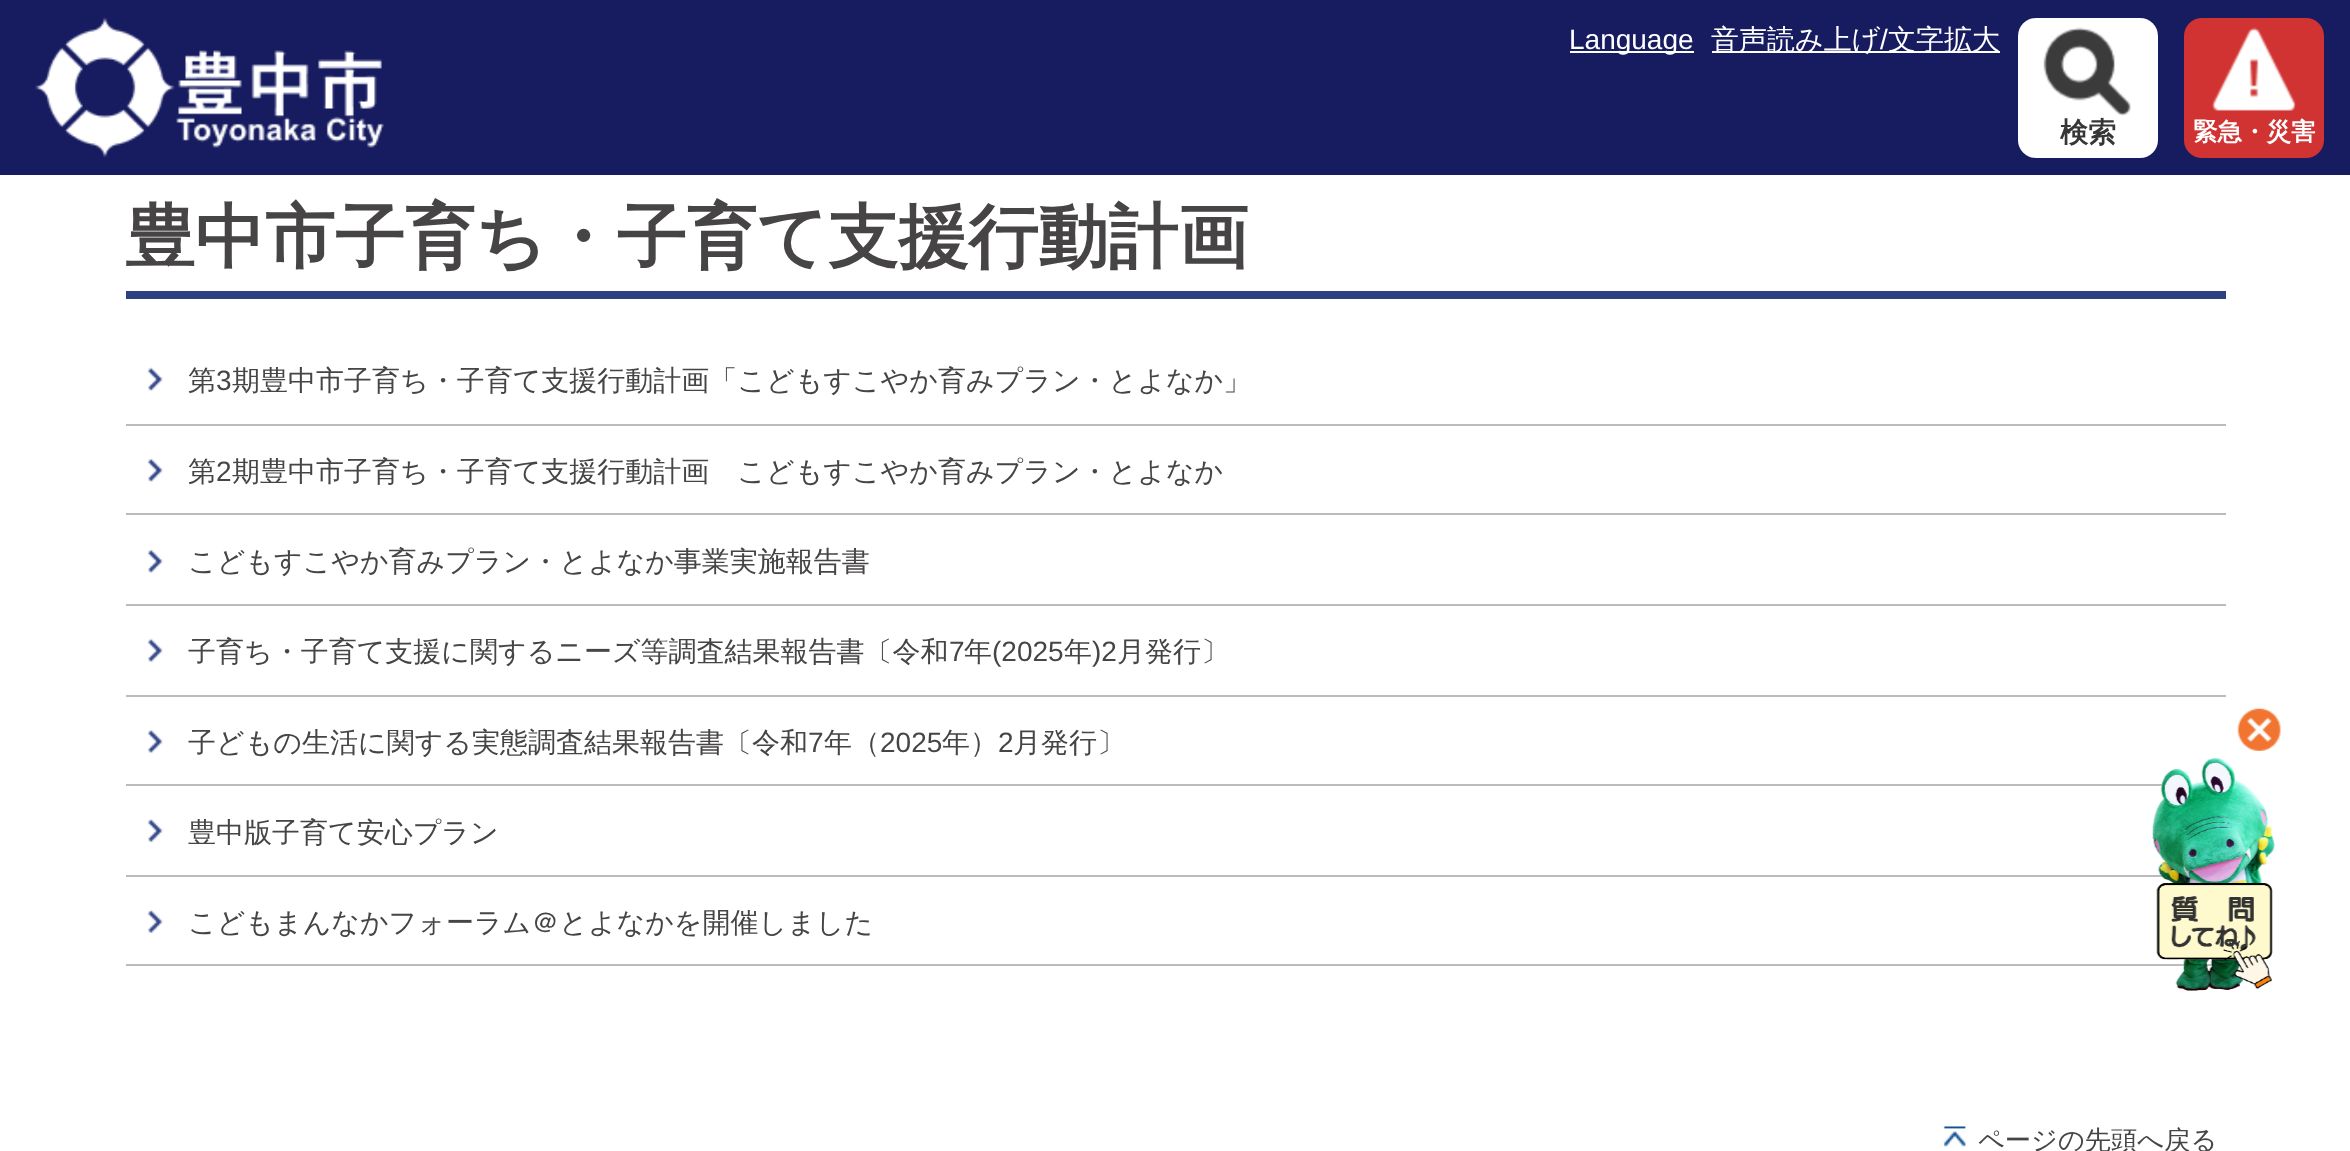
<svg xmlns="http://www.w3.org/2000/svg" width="2350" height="1151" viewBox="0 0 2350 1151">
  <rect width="100%" height="100%" fill="rgb(255,255,255)"/>
  <rect x="0" y="0" width="2350" height="175" fill="rgb(23,28,97)"/>
  <image x="35" y="17" width="349" height="141" href="pic1.png"/>
  <rect x="1570" y="51" width="124" height="2" fill="rgb(255,255,255)"/>
  <text x="1569" y="49" font-family="Liberation Sans" font-size="28" fill="rgb(255,255,255)">Language</text>
  <rect x="1712" y="51" width="288" height="2" fill="rgb(255,255,255)"/>
  <text x="1711" y="49" font-family="WenQuanYi Zen Hei" font-size="28" font-weight="500" fill="rgb(255,255,255)">音声読み上げ</text>
  <text x="1880" y="49" font-family="Liberation Sans" font-size="28" fill="rgb(255,255,255)">/</text>
  <text x="1888" y="49" font-family="WenQuanYi Zen Hei" font-size="28" font-weight="500" fill="rgb(255,255,255)">文字拡大</text>
  <rect x="2018" y="18" width="140" height="140" rx="18" fill="rgb(255,255,255)"/>
  <image x="2043" y="27" width="88" height="89" href="pic2.png"/>
  <text x="2060" y="142" font-family="WenQuanYi Zen Hei" font-size="28" font-weight="bold" fill="rgb(54,54,54)">検索</text>
  <rect x="2184" y="18" width="140" height="140" rx="18" fill="rgb(209,51,51)"/>
  <image x="2212" y="27" width="85" height="84" href="pic3.png"/>
  <text x="2193" y="140" font-family="WenQuanYi Zen Hei" font-size="24.5" font-weight="bold" fill="rgb(255,255,255)">緊急・災害</text>
  <rect x="126" y="291" width="2100" height="8" fill="rgb(44,65,130)"/>
  <text x="125" y="261" font-family="WenQuanYi Zen Hei" font-size="70" font-weight="bold" fill="rgb(70,68,68)">豊中市子育ち・子育て支援行動計画</text>
  <image x="147" y="367" width="16" height="25" href="pic4.png"/>
  <rect x="126" y="424" width="2100" height="2" fill="rgb(188,187,187)"/>
  <text x="188" y="390" font-family="WenQuanYi Zen Hei" font-size="28" font-weight="500" fill="rgb(70,68,68)">第</text>
  <text x="216" y="390" font-family="Liberation Sans" font-size="28" fill="rgb(70,68,68)">3</text>
  <text x="232" y="390" font-family="WenQuanYi Zen Hei" font-size="28" font-weight="500" fill="rgb(70,68,68)">期豊中市子育ち・子育て支援行動計画「こどもすこやか育みプラン・とよなか」</text>
  <image x="147" y="458" width="16" height="25" href="pic4.png"/>
  <rect x="126" y="513" width="2100" height="2" fill="rgb(188,187,187)"/>
  <text x="188" y="481" font-family="WenQuanYi Zen Hei" font-size="28" font-weight="500" fill="rgb(70,68,68)">第</text>
  <text x="216" y="481" font-family="Liberation Sans" font-size="28" fill="rgb(70,68,68)">2</text>
  <text x="232" y="481" font-family="WenQuanYi Zen Hei" font-size="28" font-weight="500" fill="rgb(70,68,68)">期豊中市子育ち・子育て支援行動計画　こどもすこやか育みプラン・とよなか</text>
  <image x="147" y="549" width="16" height="25" href="pic4.png"/>
  <rect x="126" y="604" width="2100" height="2" fill="rgb(188,187,187)"/>
  <text x="188" y="571" font-family="WenQuanYi Zen Hei" font-size="28" font-weight="500" fill="rgb(70,68,68)">こどもすこやか育みプラン・とよなか事業実施報告書</text>
  <image x="147" y="638" width="16" height="25" href="pic5.png"/>
  <rect x="126" y="695" width="2100" height="2" fill="rgb(188,187,187)"/>
  <text x="188" y="661" font-family="WenQuanYi Zen Hei" font-size="28" font-weight="500" fill="rgb(70,68,68)">子育ち・子育て支援に関するニーズ等調査結果報告書〔令和</text>
  <text x="949" y="661" font-family="Liberation Sans" font-size="28" fill="rgb(70,68,68)">7</text>
  <text x="964" y="661" font-family="WenQuanYi Zen Hei" font-size="28" font-weight="500" fill="rgb(70,68,68)">年</text>
  <text x="992" y="661" font-family="Liberation Sans" font-size="28" fill="rgb(70,68,68)">(2025</text>
  <text x="1064" y="661" font-family="WenQuanYi Zen Hei" font-size="28" font-weight="500" fill="rgb(70,68,68)">年</text>
  <text x="1092" y="661" font-family="Liberation Sans" font-size="28" fill="rgb(70,68,68)">)2</text>
  <text x="1117" y="661" font-family="WenQuanYi Zen Hei" font-size="28" font-weight="500" fill="rgb(70,68,68)">月発行〕</text>
  <image x="147" y="729" width="16" height="25" href="pic5.png"/>
  <rect x="126" y="784" width="2070" height="2" fill="rgb(188,187,187)"/>
  <text x="188" y="752" font-family="WenQuanYi Zen Hei" font-size="28" font-weight="500" fill="rgb(70,68,68)">子どもの生活に関する実態調査結果報告書〔令和</text>
  <text x="808" y="752" font-family="Liberation Sans" font-size="28" fill="rgb(70,68,68)">7</text>
  <text x="824" y="752" font-family="WenQuanYi Zen Hei" font-size="28" font-weight="500" fill="rgb(70,68,68)">年（</text>
  <text x="880" y="752" font-family="Liberation Sans" font-size="28" fill="rgb(70,68,68)">2025</text>
  <text x="942" y="752" font-family="WenQuanYi Zen Hei" font-size="28" font-weight="500" fill="rgb(70,68,68)">年）</text>
  <text x="998" y="752" font-family="Liberation Sans" font-size="28" fill="rgb(70,68,68)">2</text>
  <text x="1013" y="752" font-family="WenQuanYi Zen Hei" font-size="28" font-weight="500" fill="rgb(70,68,68)">月発行〕</text>
  <image x="147" y="818" width="16" height="25" href="pic6.png"/>
  <rect x="126" y="875" width="2043" height="2" fill="rgb(188,187,187)"/>
  <text x="188" y="842" font-family="WenQuanYi Zen Hei" font-size="28" font-weight="500" fill="rgb(70,68,68)">豊中版子育て安心プラン</text>
  <image x="147" y="909" width="16" height="25" href="pic6.png"/>
  <rect x="126" y="964" width="2088" height="2" fill="rgb(188,187,187)"/>
  <text x="188" y="932" font-family="WenQuanYi Zen Hei" font-size="28" font-weight="500" fill="rgb(70,68,68)">こどもまんなかフォーラム＠とよなかを開催しました</text>
  <image x="1943" y="1126" width="23" height="21" href="pic7.png"/>
  <text x="1978" y="1149" font-family="WenQuanYi Zen Hei" font-size="26.25" font-weight="500" fill="rgb(70,68,68)">ページの先頭へ戻る</text>
  <image x="2237" y="708" width="44" height="43" href="pic8.png"/>
  <image x="2152" y="758" width="123" height="233" href="pic9.png"/>
</svg>
